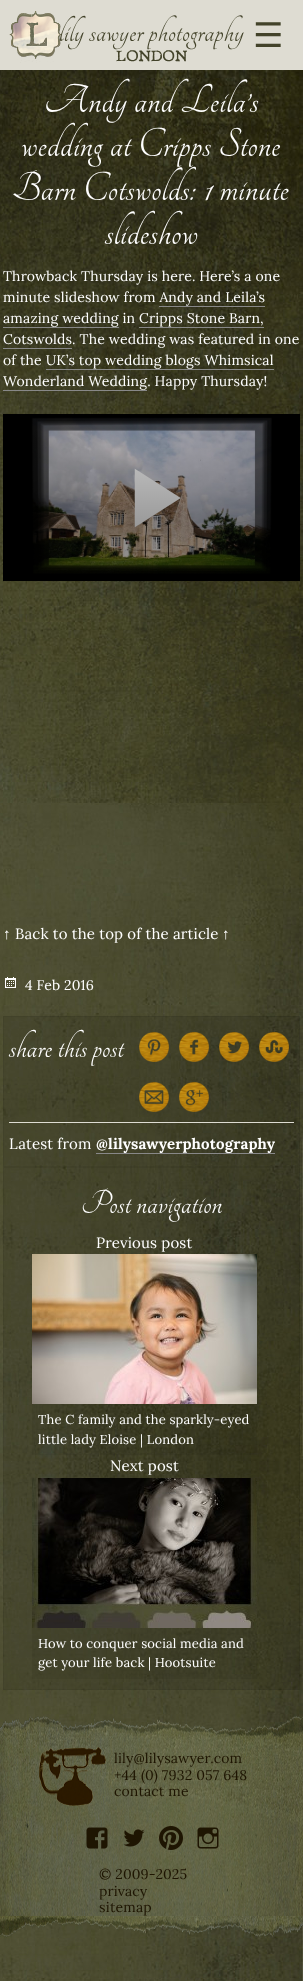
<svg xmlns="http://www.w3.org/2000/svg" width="303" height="1981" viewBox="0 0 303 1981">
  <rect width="100%" height="100%" fill="rgb(255,255,255)"/>
  <image x="0" y="803" width="303" height="1178" href="pic1.png"/>
  <image x="0" y="70" width="303" height="733" href="pic2.png"/>
  <rect x="0" y="0" width="303" height="70" fill="rgb(222,220,210)"/>
  <image x="9" y="11" width="53" height="52" href="pic3.png"/>
  <text x="59" y="41" font-family="Tangerine" font-size="34" letter-spacing="0.3" fill="rgb(67,67,42)">lily sawyer photography</text>
  <text x="253" y="47" font-family="DejaVu Sans" font-size="34" letter-spacing="0.15" fill="rgb(67,67,42)">☰</text>
  <text x="116" y="61" font-family="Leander" font-size="14" letter-spacing="0.15" fill="rgb(67,67,42)">LONDON</text>
  <g font-family="Tangerine" font-size="44" letter-spacing="0.4" fill="rgb(255,255,255)">
    <text x="44" y="112">Andy and Leila’s</text>
    <text x="21" y="156">wedding at Cripps Stone</text>
    <text x="12" y="200">Barn Cotswolds: 1 minute</text>
    <text x="105" y="244">slideshow</text>
  </g>
  <g font-family="Lora" font-size="14" letter-spacing="0.15" fill="rgb(255,255,255)">
    <text>
      <tspan x="3" y="281">Throwback Thursday is here. Here’s a one</tspan>
      <tspan x="3" y="302">minute slideshow from Andy and Leila’s</tspan>
      <tspan x="3" y="323">amazing wedding in Cripps Stone Barn,</tspan>
    </text>
  </g>
  <rect x="159" y="306" width="106" height="1" fill="rgb(136,136,136)"/>
  <rect x="3" y="327" width="116" height="1" fill="rgb(136,136,136)"/>
  <text x="3" y="344" font-family="Lora" font-size="14" letter-spacing="0.15" fill="rgb(255,255,255)">Cotswolds. The wedding was featured in one</text>
  <rect x="139" y="327" width="125" height="1" fill="rgb(136,136,136)"/>
  <rect x="3" y="348" width="69" height="1" fill="rgb(136,136,136)"/>
  <g font-family="Lora" font-size="14" letter-spacing="0.15" fill="rgb(255,255,255)">
    <text>
      <tspan x="3" y="365">of the UK’s top wedding blogs Whimsical</tspan>
      <tspan x="3" y="386">Wonderland Wedding. Happy Thursday!</tspan>
    </text>
  </g>
  <rect x="46" y="369" width="228" height="1" fill="rgb(136,136,136)"/>
  <rect x="3" y="390" width="144" height="1" fill="rgb(136,136,136)"/>
  <image x="3" y="414" width="297" height="167" href="pic4.png"/>
  <text x="3" y="939" font-family="Liberation Serif" font-size="15" letter-spacing="0.15" fill="rgb(255,255,255)">↑</text>
  <text x="15" y="939" font-family="Lora" font-size="15" letter-spacing="0.15" fill="rgb(255,255,255)">Back to the top of the article</text>
  <text x="222" y="939" font-family="Liberation Serif" font-size="15" letter-spacing="0.15" fill="rgb(255,255,255)">↑</text>
  <image x="5" y="977" width="11" height="11" href="pic5.png"/>
  <text x="25" y="990" font-family="Lora" font-size="14" letter-spacing="0.15" fill="rgb(255,255,255)">4 Feb 2016</text>
  <rect x="3" y="1016" width="297" height="151" fill="rgba(0,0,0,0.1)"/>
  <rect x="3.5" y="1016.5" width="296" height="150" fill="none" stroke="rgba(0,0,0,0.05)"/>
  <text x="9" y="1057" font-family="Tangerine" font-size="36" letter-spacing="0.15" fill="rgb(255,255,255)">share this post</text>
  <image x="139" y="1032" width="30" height="30" href="pic6.png"/>
  <image x="179" y="1032" width="30" height="30" href="pic7.png"/>
  <image x="219" y="1032" width="30" height="30" href="pic8.png"/>
  <image x="259" y="1032" width="30" height="30" href="pic9.png"/>
  <image x="139" y="1082" width="30" height="30" href="pic10.png"/>
  <image x="179" y="1082" width="30" height="30" href="pic11.png"/>
  <rect x="9" y="1122" width="285" height="1" fill="rgb(222,220,210)"/>
  <text x="9" y="1149" font-family="Lora" font-size="15" letter-spacing="0.15" fill="rgb(255,255,255)">Latest from</text>
  <rect x="96" y="1153" width="179" height="1" fill="rgb(136,136,136)"/>
  <text x="96" y="1149" font-family="Lora" font-size="15" font-weight="bold" letter-spacing="0.15" fill="rgb(255,255,255)">@lilysawyerphotography</text>
  <rect x="3" y="1167" width="297" height="523" fill="rgba(0,0,0,0.1)"/>
  <rect x="3.5" y="1167.5" width="296" height="522" fill="none" stroke="rgba(0,0,0,0.05)"/>
  <text x="81" y="1213" font-family="Tangerine" font-size="36" letter-spacing="0.15" fill="rgb(255,255,255)">Post navigation</text>
  <text x="96" y="1248" font-family="Lora" font-size="15" letter-spacing="0.15" fill="rgb(255,255,255)">Previous post</text>
  <image x="32" y="1254" width="225" height="150" href="pic12.png"/>
  <rect x="32" y="1404" width="225" height="51" fill="rgba(0,0,0,0.05)"/>
  <g font-family="Lora" font-size="13" letter-spacing="0.15" fill="rgb(255,255,255)">
    <text>
      <tspan x="38" y="1424">The C family and the sparkly-eyed</tspan>
      <tspan x="38" y="1444">little lady Eloise | London</tspan>
    </text>
  </g>
  <text x="110" y="1471" font-family="Lora" font-size="15" letter-spacing="0.15" fill="rgb(255,255,255)">Next post</text>
  <image x="32" y="1478" width="225" height="150" href="pic13.png"/>
  <rect x="32" y="1628" width="225" height="51" fill="rgba(0,0,0,0.05)"/>
  <g font-family="Lora" font-size="13" letter-spacing="0.15" fill="rgb(255,255,255)">
    <text>
      <tspan x="38" y="1648">How to conquer social media and</tspan>
      <tspan x="38" y="1667">get your life back | Hootsuite</tspan>
    </text>
  </g>
  <image x="0" y="1716" width="303" height="24" href="pic14.png"/>
  <image x="0" y="1740" width="303" height="176" href="pic15.png"/>
  <image x="39" y="1747" width="67" height="59" href="pic16.png"/>
  <g font-family="Lora" font-size="14" letter-spacing="0.15" fill="rgb(30,21,2)">
    <text>
      <tspan x="114" y="1763">lily@lilysawyer.com</tspan>
      <tspan x="114" y="1780">+44 (0) 7932 057 648</tspan>
      <tspan x="114" y="1796">contact me</tspan>
    </text>
  </g>
  <image x="86" y="1827" width="22" height="22" href="pic17.png"/>
  <image x="123" y="1829" width="22" height="18" href="pic18.png"/>
  <image x="159" y="1826" width="24" height="24" href="pic19.png"/>
  <image x="197" y="1827" width="22" height="22" href="pic20.png"/>
  <g font-family="Lora" font-size="14" letter-spacing="0.15" fill="rgb(30,21,2)">
    <text>
      <tspan x="99" y="1879">© 2009-2025</tspan>
      <tspan x="99" y="1896">privacy</tspan>
      <tspan x="99" y="1912">sitemap</tspan>
    </text>
  </g>
  <image x="0" y="1916" width="303" height="22" href="pic21.png"/>
</svg>
